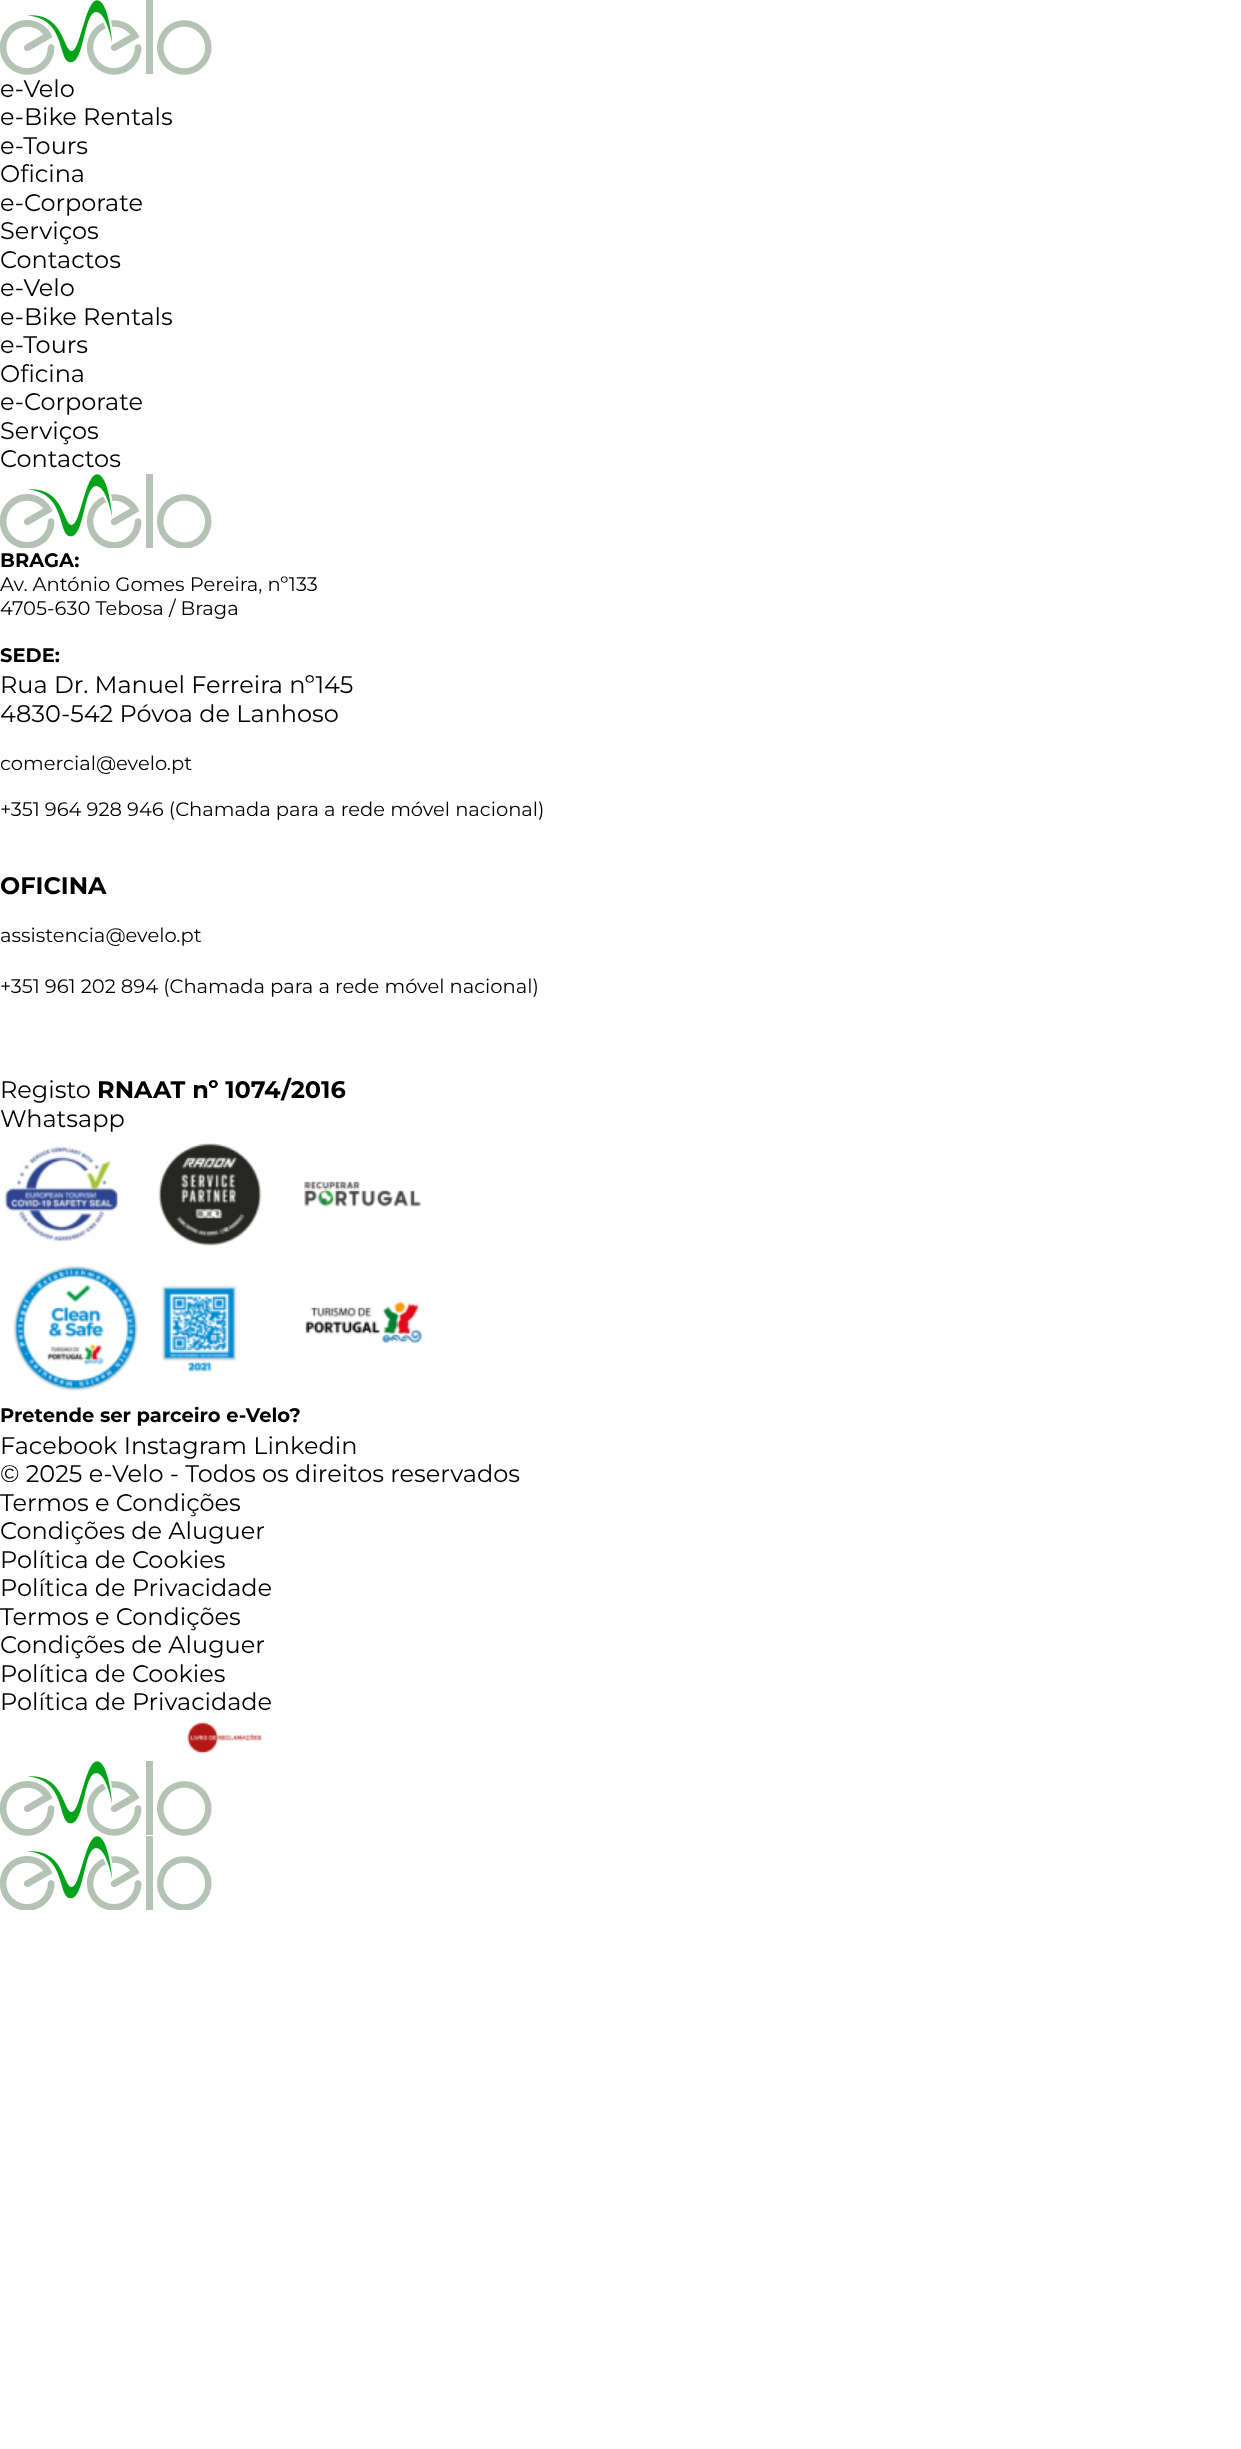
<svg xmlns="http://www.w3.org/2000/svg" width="1241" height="2449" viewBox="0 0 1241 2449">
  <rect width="100%" height="100%" fill="rgb(255,255,255)"/>
  <image x="0" y="0" width="212" height="75" href="pic1.png"/>
  <g font-family="Montserrat" font-size="24" fill="rgb(0,0,0)">
    <text>
      <tspan x="0" y="97">e-Velo</tspan>
      <tspan x="0" y="125">e-Bike Rentals</tspan>
      <tspan x="0" y="154">e-Tours</tspan>
      <tspan x="0" y="182">Oficina</tspan>
      <tspan x="0" y="211">e-Corporate</tspan>
      <tspan x="0" y="239">Serviços</tspan>
      <tspan x="0" y="268">Contactos</tspan>
      <tspan x="0" y="296">e-Velo</tspan>
      <tspan x="0" y="325">e-Bike Rentals</tspan>
      <tspan x="0" y="353">e-Tours</tspan>
      <tspan x="0" y="382">Oficina</tspan>
      <tspan x="0" y="410">e-Corporate</tspan>
      <tspan x="0" y="439">Serviços</tspan>
      <tspan x="0" y="467">Contactos</tspan>
    </text>
  </g>
  <image x="0" y="474" width="212" height="74" href="pic2.png"/>
  <text x="0" y="567" font-family="Montserrat" font-size="19.5" font-weight="bold" fill="rgb(0,0,0)">BRAGA:</text>
  <g font-family="Montserrat" font-size="19.5" fill="rgb(0,0,0)">
    <text>
      <tspan x="0" y="591">Av. António Gomes Pereira, nº133</tspan>
      <tspan x="0" y="615">4705-630 Tebosa / Braga</tspan>
    </text>
  </g>
  <text x="0" y="662" font-family="Montserrat" font-size="19.5" font-weight="bold" fill="rgb(0,0,0)">SEDE:</text>
  <g font-family="Montserrat" font-size="24" fill="rgb(0,0,0)">
    <text>
      <tspan x="0" y="693">Rua Dr. Manuel Ferreira nº145</tspan>
      <tspan x="0" y="722">4830-542 Póvoa de Lanhoso</tspan>
    </text>
  </g>
  <g font-family="Montserrat" font-size="19.5" fill="rgb(0,0,0)">
    <text x="0" y="770">comercial@evelo.pt</text>
    <text x="0" y="816">+351 964 928 946 (Chamada para a rede móvel nacional)</text>
  </g>
  <text x="0" y="894" font-family="Montserrat" font-size="24" font-weight="bold" fill="rgb(0,0,0)">OFICINA</text>
  <g font-family="Montserrat" font-size="19.5" fill="rgb(0,0,0)">
    <text x="0" y="942">assistencia@evelo.pt</text>
    <text x="0" y="993">+351 961 202 894 (Chamada para a rede móvel nacional)</text>
  </g>
  <text x="0" y="1098" font-family="Montserrat" font-size="24" fill="rgb(0,0,0)">Registo</text>
  <text x="97" y="1098" font-family="Montserrat" font-size="24" font-weight="bold" fill="rgb(0,0,0)">RNAAT nº 1074/2016</text>
  <text x="0" y="1127" font-family="Montserrat" font-size="24" fill="rgb(0,0,0)">Whatsapp</text>
  <image x="4" y="1142" width="419" height="249" href="pic3.png"/>
  <text x="0" y="1422" font-family="Montserrat" font-size="19.5" font-weight="bold" fill="rgb(0,0,0)">Pretende ser parceiro e-Velo?</text>
  <g font-family="Montserrat" font-size="24" fill="rgb(0,0,0)">
    <text>
      <tspan x="0" y="1454">Facebook Instagram Linkedin</tspan>
      <tspan x="0" y="1482">© 2025 e-Velo - Todos os direitos reservados</tspan>
      <tspan x="0" y="1511">Termos e Condições</tspan>
      <tspan x="0" y="1539">Condições de Aluguer</tspan>
      <tspan x="0" y="1568">Política de Cookies</tspan>
      <tspan x="0" y="1596">Política de Privacidade</tspan>
      <tspan x="0" y="1625">Termos e Condições</tspan>
      <tspan x="0" y="1653">Condições de Aluguer</tspan>
      <tspan x="0" y="1682">Política de Cookies</tspan>
      <tspan x="0" y="1710">Política de Privacidade</tspan>
    </text>
  </g>
  <image x="187" y="1721" width="75" height="33" href="pic4.png"/>
  <image x="0" y="1761" width="212" height="75" href="pic1.png"/>
  <image x="0" y="1836" width="212" height="74" href="pic2.png"/>
</svg>
